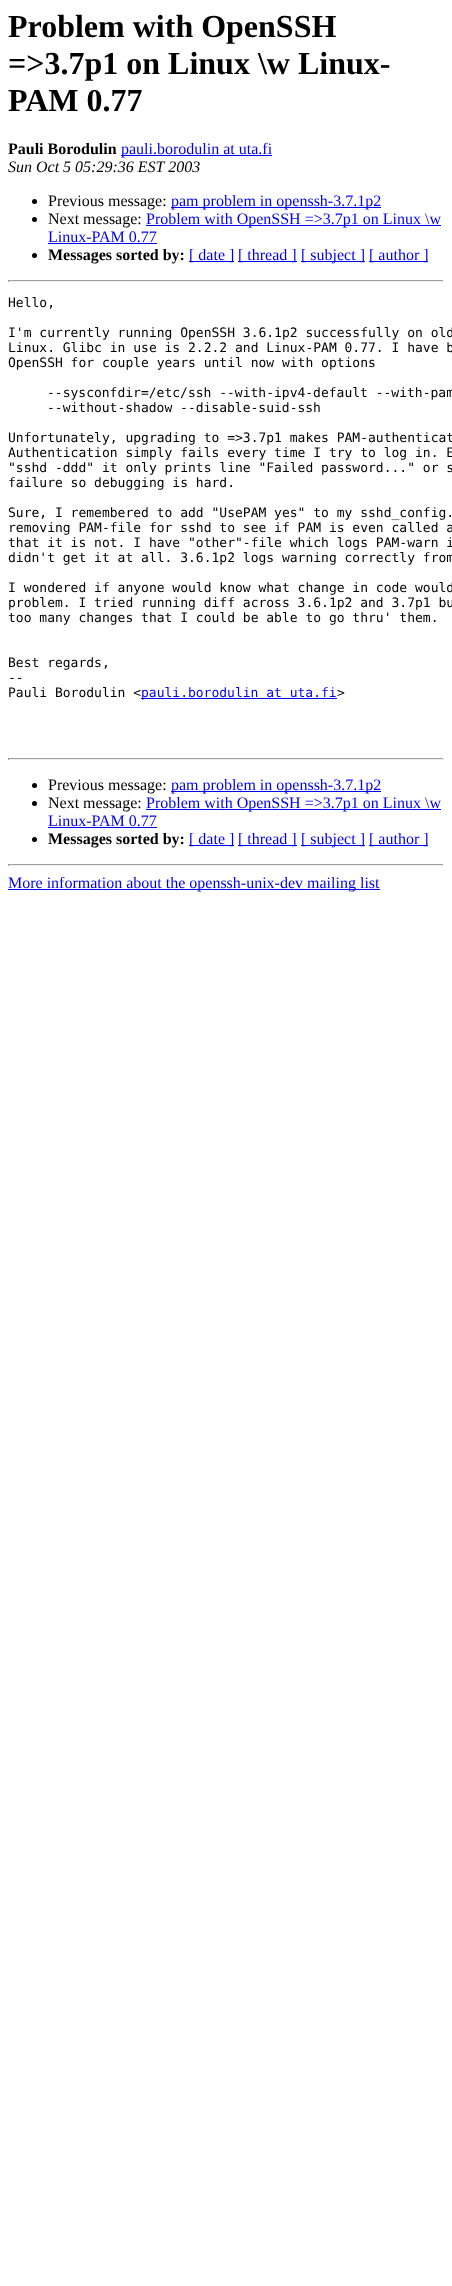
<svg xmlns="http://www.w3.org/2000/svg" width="452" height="2286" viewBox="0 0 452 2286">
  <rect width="100%" height="100%" fill="rgb(255,255,255)"/>
  <g font-family="Liberation Serif" font-size="32" font-weight="bold" fill="rgb(0,0,0)">
    <text>
      <tspan x="8" y="37">Problem with OpenSSH</tspan>
      <tspan x="8" y="74">=&gt;3.7p1 on Linux \w Linux-</tspan>
      <tspan x="8" y="111">PAM 0.77</tspan>
    </text>
  </g>
  <text x="8" y="154" font-family="Liberation Serif" font-size="16" font-weight="bold" fill="rgb(0,0,0)">Pauli Borodulin</text>
  <rect x="121" y="155" width="151" height="1" fill="rgb(0,0,238)"/>
  <text x="121" y="154" font-family="Liberation Serif" font-size="16" fill="rgb(0,0,238)">pauli.borodulin at uta.fi</text>
  <text x="8" y="172" font-family="Liberation Serif" font-size="16" font-style="italic" fill="rgb(0,0,0)">Sun Oct 5 05:29:36 EST 2003</text>
  <circle cx="34.5" cy="201.5" r="2.5" fill="rgb(0,0,0)"/>
  <text x="48" y="206" font-family="Liberation Serif" font-size="16" fill="rgb(0,0,0)">Previous message:</text>
  <rect x="171" y="207" width="210" height="1" fill="rgb(0,0,238)"/>
  <text x="171" y="206" font-family="Liberation Serif" font-size="16" fill="rgb(0,0,238)">pam problem in openssh-3.7.1p2</text>
  <circle cx="34.5" cy="219.5" r="2.5" fill="rgb(0,0,0)"/>
  <text x="48" y="224" font-family="Liberation Serif" font-size="16" fill="rgb(0,0,0)">Next message:</text>
  <rect x="146" y="225" width="295" height="1" fill="rgb(0,0,238)"/>
  <g font-family="Liberation Serif" font-size="16" fill="rgb(0,0,238)">
    <text x="146" y="224">Problem with OpenSSH =&gt;3.7p1 on Linux \w</text>
    <text x="48" y="242">Linux-PAM 0.77</text>
  </g>
  <rect x="48" y="243" width="109" height="1" fill="rgb(0,0,238)"/>
  <circle cx="34.5" cy="255.5" r="2.5" fill="rgb(0,0,0)"/>
  <text x="48" y="260" font-family="Liberation Serif" font-size="16" font-weight="bold" fill="rgb(0,0,0)">Messages sorted by:</text>
  <rect x="189" y="261" width="45" height="1" fill="rgb(0,0,238)"/>
  <text x="189" y="260" font-family="Liberation Serif" font-size="16" fill="rgb(0,0,238)">[ date ]</text>
  <rect x="238" y="261" width="59" height="1" fill="rgb(0,0,238)"/>
  <text x="238" y="260" font-family="Liberation Serif" font-size="16" fill="rgb(0,0,238)">[ thread ]</text>
  <rect x="301" y="261" width="64" height="1" fill="rgb(0,0,238)"/>
  <text x="301" y="260" font-family="Liberation Serif" font-size="16" fill="rgb(0,0,238)">[ subject ]</text>
  <rect x="369" y="261" width="59" height="1" fill="rgb(0,0,238)"/>
  <text x="369" y="260" font-family="Liberation Serif" font-size="16" fill="rgb(0,0,238)">[ author ]</text>
  <rect x="8" y="280" width="436" height="1" fill="rgb(159,159,159)"/>
  <rect x="443" y="280" width="1" height="2" fill="rgb(238,238,238)"/>
  <rect x="8" y="281" width="436" height="1" fill="rgb(238,238,238)"/>
  <rect x="8" y="280" width="1" height="2" fill="rgb(159,159,159)"/>
  <g font-family="DejaVu Sans Mono" font-size="13" fill="rgb(0,0,0)">
    <text x="8" y="307">Hello,</text>
    <text>
      <tspan x="8" y="337">I'm currently running OpenSSH 3.6.1p2 successfully on old</tspan>
      <tspan x="8" y="352">Linux. Glibc in use is 2.2.2 and Linux-PAM 0.77. I have b</tspan>
      <tspan x="8" y="367">OpenSSH for couple years until now with options</tspan>
    </text>
    <text>
      <tspan x="47" y="397">--sysconfdir=/etc/ssh --with-ipv4-default --with-pam</tspan>
      <tspan x="47" y="412">--without-shadow --disable-suid-ssh</tspan>
    </text>
    <text>
      <tspan x="8" y="442">Unfortunately, upgrading to =&gt;3.7p1 makes PAM-authenticat</tspan>
      <tspan x="8" y="457">Authentication simply fails every time I try to log in. E</tspan>
      <tspan x="8" y="472">"sshd -ddd" it only prints line "Failed password..." or s</tspan>
      <tspan x="8" y="487">failure so debugging is hard.</tspan>
    </text>
    <text>
      <tspan x="8" y="517">Sure, I remembered to add "UsePAM yes" to my sshd_config.</tspan>
      <tspan x="8" y="532">removing PAM-file for sshd to see if PAM is even called a</tspan>
      <tspan x="8" y="547">that it is not. I have "other"-file which logs PAM-warn i</tspan>
      <tspan x="8" y="562">didn't get it at all. 3.6.1p2 logs warning correctly from</tspan>
    </text>
    <text>
      <tspan x="8" y="592">I wondered if anyone would know what change in code would</tspan>
      <tspan x="8" y="607">problem. I tried running diff across 3.6.1p2 and 3.7p1 bu</tspan>
      <tspan x="8" y="622">too many changes that I could be able to go thru' them.</tspan>
    </text>
    <text>
      <tspan x="8" y="667">Best regards,</tspan>
      <tspan x="8" y="682">--</tspan>
      <tspan x="8" y="697">Pauli Borodulin &lt;</tspan>
    </text>
  </g>
  <rect x="141" y="698" width="196" height="1" fill="rgb(0,0,238)"/>
  <text x="141" y="697" font-family="DejaVu Sans Mono" font-size="13" fill="rgb(0,0,238)">pauli.borodulin at uta.fi</text>
  <text x="337" y="697" font-family="DejaVu Sans Mono" font-size="13" fill="rgb(0,0,0)">&gt;</text>
  <rect x="8" y="758" width="436" height="1" fill="rgb(159,159,159)"/>
  <rect x="443" y="758" width="1" height="2" fill="rgb(238,238,238)"/>
  <rect x="8" y="759" width="436" height="1" fill="rgb(238,238,238)"/>
  <rect x="8" y="758" width="1" height="2" fill="rgb(159,159,159)"/>
  <circle cx="34.5" cy="785.5" r="2.5" fill="rgb(0,0,0)"/>
  <text x="48" y="790" font-family="Liberation Serif" font-size="16" fill="rgb(0,0,0)">Previous message:</text>
  <rect x="171" y="791" width="210" height="1" fill="rgb(0,0,238)"/>
  <text x="171" y="790" font-family="Liberation Serif" font-size="16" fill="rgb(0,0,238)">pam problem in openssh-3.7.1p2</text>
  <circle cx="34.5" cy="803.5" r="2.5" fill="rgb(0,0,0)"/>
  <text x="48" y="808" font-family="Liberation Serif" font-size="16" fill="rgb(0,0,0)">Next message:</text>
  <rect x="146" y="809" width="295" height="1" fill="rgb(0,0,238)"/>
  <g font-family="Liberation Serif" font-size="16" fill="rgb(0,0,238)">
    <text x="146" y="808">Problem with OpenSSH =&gt;3.7p1 on Linux \w</text>
    <text x="48" y="826">Linux-PAM 0.77</text>
  </g>
  <rect x="48" y="827" width="109" height="1" fill="rgb(0,0,238)"/>
  <circle cx="34.5" cy="839.5" r="2.5" fill="rgb(0,0,0)"/>
  <text x="48" y="844" font-family="Liberation Serif" font-size="16" font-weight="bold" fill="rgb(0,0,0)">Messages sorted by:</text>
  <rect x="189" y="845" width="45" height="1" fill="rgb(0,0,238)"/>
  <text x="189" y="844" font-family="Liberation Serif" font-size="16" fill="rgb(0,0,238)">[ date ]</text>
  <rect x="238" y="845" width="59" height="1" fill="rgb(0,0,238)"/>
  <text x="238" y="844" font-family="Liberation Serif" font-size="16" fill="rgb(0,0,238)">[ thread ]</text>
  <rect x="301" y="845" width="64" height="1" fill="rgb(0,0,238)"/>
  <text x="301" y="844" font-family="Liberation Serif" font-size="16" fill="rgb(0,0,238)">[ subject ]</text>
  <rect x="369" y="845" width="59" height="1" fill="rgb(0,0,238)"/>
  <text x="369" y="844" font-family="Liberation Serif" font-size="16" fill="rgb(0,0,238)">[ author ]</text>
  <rect x="8" y="864" width="436" height="1" fill="rgb(159,159,159)"/>
  <rect x="443" y="864" width="1" height="2" fill="rgb(238,238,238)"/>
  <rect x="8" y="865" width="436" height="1" fill="rgb(238,238,238)"/>
  <rect x="8" y="864" width="1" height="2" fill="rgb(159,159,159)"/>
  <rect x="8" y="889" width="372" height="1" fill="rgb(0,0,238)"/>
  <text x="8" y="888" font-family="Liberation Serif" font-size="16" fill="rgb(0,0,238)">More information about the openssh-unix-dev mailing list</text>
</svg>
